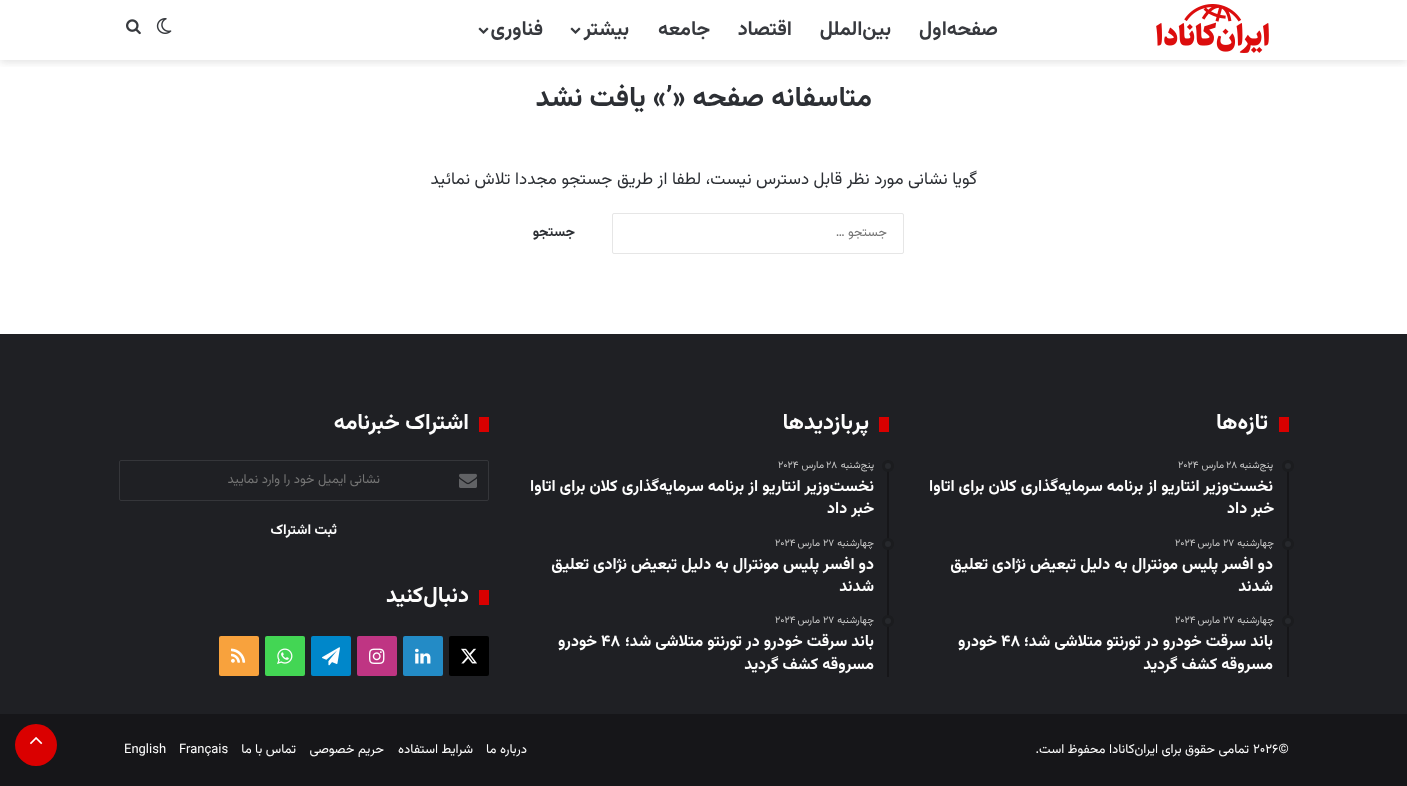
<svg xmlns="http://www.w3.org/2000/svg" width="1407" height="786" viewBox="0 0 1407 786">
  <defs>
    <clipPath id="clip1"><rect x="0" y="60" width="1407" height="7"/></clipPath>
  </defs>
  <rect width="100%" height="100%" fill="rgb(255,255,255)"/>
  <g clip-path="url(#clip1)">
    <rect x="0" y="2" width="1407" height="60" fill="rgba(99,99,99,0.2)" filter="blur(4px)"/>
  </g>
  <image x="1156" y="4" width="113" height="49" href="pic1.png"/>
  <g font-family="Vazirmatn" font-size="20" font-weight="bold" direction="rtl" fill="rgb(55,57,62)">
    <text x="998" y="35">صفحه‌اول</text>
    <text x="891" y="35">بین‌الملل</text>
    <text x="792" y="35">اقتصاد</text>
    <text x="710" y="35">جامعه</text>
    <text x="629" y="35">بیشتر</text>
  </g>
  <image x="570" y="27" width="11" height="7" href="pic2.png"/>
  <text x="543" y="35" font-family="Vazirmatn" font-size="20" font-weight="bold" direction="rtl" fill="rgb(55,57,62)">فناوری</text>
  <image x="478" y="27" width="11" height="7" href="pic2.png"/>
  <image x="156" y="18" width="16" height="16" href="pic3.png"/>
  <image x="126" y="19" width="15" height="16" href="pic4.png"/>
  <text x="872" y="106" font-family="Vazirmatn" font-size="28" font-weight="bold" direction="rtl" fill="rgb(44,47,52)">متاسفانه صفحه «’» یافت نشد</text>
  <text x="977" y="184" font-family="Vazirmatn" font-size="17" direction="rtl" fill="rgb(44,47,52)">گویا نشانی مورد نظر قابل دسترس نیست، لطفا از طریق جستجو مجددا تلاش نمائید</text>
  <rect x="612.5" y="213.5" width="291" height="40" rx="1.5" fill="none" stroke="rgb(230,230,230)"/>
  <text x="887" y="236" font-family="Vazirmatn" font-size="13" direction="rtl" fill="rgb(117,117,117)">جستجو …</text>
  <text x="575" y="236" font-family="Vazirmatn" font-size="14" font-weight="bold" direction="rtl" fill="rgb(44,47,52)">جستجو</text>
  <rect x="0" y="334" width="1407" height="380" fill="rgb(31,32,36)"/>
  <rect x="1279" y="417" width="10" height="15" fill="rgb(216,0,0)"/>
  <text x="1268" y="429" font-family="Vazirmatn" font-size="22" font-weight="bold" direction="rtl" fill="rgb(253,253,253)">تازه‌ها</text>
  <rect x="1287" y="460" width="2" height="217" fill="rgb(22,22,25)"/>
  <circle cx="1288" cy="466" r="4.5" fill="rgb(39,41,45)" stroke="rgb(27,28,31)" stroke-width="3"/>
  <text x="1273" y="468" font-family="Vazirmatn" font-size="10" direction="rtl" fill="rgb(202,202,202)">پنج‌شنبه</text>
  <text x="1226" y="468" font-family="Vazirmatn" font-size="10" fill="rgb(202,202,202)">۲۸</text>
  <text x="1224" y="468" font-family="Vazirmatn" font-size="10" direction="rtl" fill="rgb(202,202,202)">مارس</text>
  <text x="1178" y="468" font-family="Vazirmatn" font-size="10" fill="rgb(202,202,202)">۲۰۲۴</text>
  <g font-family="Vazirmatn" font-size="16" font-weight="bold" direction="rtl" fill="rgb(253,253,253)">
    <text x="1273" y="491">نخست‌وزیر انتاریو از برنامه سرمایه‌گذاری کلان برای اتاوا</text>
    <text x="1274" y="513">خبر داد</text>
  </g>
  <circle cx="1288" cy="544" r="4.5" fill="rgb(39,41,45)" stroke="rgb(27,28,31)" stroke-width="3"/>
  <text x="1274" y="546" font-family="Vazirmatn" font-size="10" direction="rtl" fill="rgb(202,202,202)">چهارشنبه</text>
  <text x="1223" y="546" font-family="Vazirmatn" font-size="10" fill="rgb(202,202,202)">۲۷</text>
  <text x="1220" y="546" font-family="Vazirmatn" font-size="10" direction="rtl" fill="rgb(202,202,202)">مارس</text>
  <text x="1175" y="546" font-family="Vazirmatn" font-size="10" fill="rgb(202,202,202)">۲۰۲۴</text>
  <g font-family="Vazirmatn" font-size="16" font-weight="bold" direction="rtl" fill="rgb(253,253,253)">
    <text>
      <tspan x="1273" y="569">دو افسر پلیس مونترال به دلیل تبعیض نژادی تعلیق</tspan>
      <tspan x="1273" y="591">شدند</tspan>
    </text>
  </g>
  <circle cx="1288" cy="621" r="4.5" fill="rgb(39,41,45)" stroke="rgb(27,28,31)" stroke-width="3"/>
  <text x="1274" y="623" font-family="Vazirmatn" font-size="10" direction="rtl" fill="rgb(202,202,202)">چهارشنبه</text>
  <text x="1223" y="623" font-family="Vazirmatn" font-size="10" fill="rgb(202,202,202)">۲۷</text>
  <text x="1220" y="623" font-family="Vazirmatn" font-size="10" direction="rtl" fill="rgb(202,202,202)">مارس</text>
  <text x="1175" y="623" font-family="Vazirmatn" font-size="10" fill="rgb(202,202,202)">۲۰۲۴</text>
  <text x="1273" y="646" font-family="Vazirmatn" font-size="16" font-weight="bold" direction="rtl" fill="rgb(253,253,253)">باند سرقت خودرو در تورنتو متلاشی شد؛</text>
  <text x="1001" y="646" font-family="Vazirmatn" font-size="16" font-weight="bold" fill="rgb(253,253,253)">۴۸</text>
  <g font-family="Vazirmatn" font-size="16" font-weight="bold" direction="rtl" fill="rgb(253,253,253)">
    <text x="997" y="646">خودرو</text>
    <text x="1273" y="669">مسروقه کشف گردید</text>
  </g>
  <rect x="879" y="417" width="10" height="15" fill="rgb(216,0,0)"/>
  <text x="869" y="429" font-family="Vazirmatn" font-size="22" font-weight="bold" direction="rtl" fill="rgb(253,253,253)">پربازدیدها</text>
  <rect x="887" y="460" width="2" height="217" fill="rgb(22,22,25)"/>
  <circle cx="888" cy="466" r="4.5" fill="rgb(39,41,45)" stroke="rgb(27,28,31)" stroke-width="3"/>
  <text x="874" y="468" font-family="Vazirmatn" font-size="10" direction="rtl" fill="rgb(202,202,202)">پنج‌شنبه</text>
  <text x="826" y="468" font-family="Vazirmatn" font-size="10" fill="rgb(202,202,202)">۲۸</text>
  <text x="824" y="468" font-family="Vazirmatn" font-size="10" direction="rtl" fill="rgb(202,202,202)">مارس</text>
  <text x="778" y="468" font-family="Vazirmatn" font-size="10" fill="rgb(202,202,202)">۲۰۲۴</text>
  <g font-family="Vazirmatn" font-size="16" font-weight="bold" direction="rtl" fill="rgb(253,253,253)">
    <text>
      <tspan x="874" y="491">نخست‌وزیر انتاریو از برنامه سرمایه‌گذاری کلان برای اتاوا</tspan>
      <tspan x="874" y="513">خبر داد</tspan>
    </text>
  </g>
  <circle cx="888" cy="544" r="4.5" fill="rgb(39,41,45)" stroke="rgb(27,28,31)" stroke-width="3"/>
  <text x="874" y="546" font-family="Vazirmatn" font-size="10" direction="rtl" fill="rgb(202,202,202)">چهارشنبه</text>
  <text x="823" y="546" font-family="Vazirmatn" font-size="10" fill="rgb(202,202,202)">۲۷</text>
  <text x="820" y="546" font-family="Vazirmatn" font-size="10" direction="rtl" fill="rgb(202,202,202)">مارس</text>
  <text x="775" y="546" font-family="Vazirmatn" font-size="10" fill="rgb(202,202,202)">۲۰۲۴</text>
  <g font-family="Vazirmatn" font-size="16" font-weight="bold" direction="rtl" fill="rgb(253,253,253)">
    <text>
      <tspan x="874" y="569">دو افسر پلیس مونترال به دلیل تبعیض نژادی تعلیق</tspan>
      <tspan x="874" y="591">شدند</tspan>
    </text>
  </g>
  <circle cx="888" cy="621" r="4.5" fill="rgb(39,41,45)" stroke="rgb(27,28,31)" stroke-width="3"/>
  <text x="874" y="623" font-family="Vazirmatn" font-size="10" direction="rtl" fill="rgb(202,202,202)">چهارشنبه</text>
  <text x="823" y="623" font-family="Vazirmatn" font-size="10" fill="rgb(202,202,202)">۲۷</text>
  <text x="820" y="623" font-family="Vazirmatn" font-size="10" direction="rtl" fill="rgb(202,202,202)">مارس</text>
  <text x="775" y="623" font-family="Vazirmatn" font-size="10" fill="rgb(202,202,202)">۲۰۲۴</text>
  <text x="874" y="646" font-family="Vazirmatn" font-size="16" font-weight="bold" direction="rtl" fill="rgb(253,253,253)">باند سرقت خودرو در تورنتو متلاشی شد؛</text>
  <text x="601" y="646" font-family="Vazirmatn" font-size="16" font-weight="bold" fill="rgb(253,253,253)">۴۸</text>
  <g font-family="Vazirmatn" font-size="16" font-weight="bold" direction="rtl" fill="rgb(253,253,253)">
    <text x="597" y="646">خودرو</text>
    <text x="874" y="669">مسروقه کشف گردید</text>
  </g>
  <rect x="479" y="417" width="10" height="15" fill="rgb(216,0,0)"/>
  <text x="469" y="429" font-family="Vazirmatn" font-size="22" font-weight="bold" direction="rtl" fill="rgb(253,253,253)">اشتراک خبرنامه</text>
  <rect x="119.5" y="460.5" width="369" height="40" rx="1.5" fill="none" stroke="rgb(53,54,58)"/>
  <image x="459" y="473" width="18" height="15" href="pic5.png"/>
  <text x="380" y="483" font-family="Vazirmatn" font-size="13" direction="rtl" fill="rgb(117,117,117)">نشانی ایمیل خود را وارد نمایید</text>
  <text x="337" y="534" font-family="Vazirmatn" font-size="14" font-weight="bold" direction="rtl" fill="rgb(253,253,253)">ثبت اشتراک</text>
  <rect x="479" y="590" width="10" height="15" fill="rgb(216,0,0)"/>
  <text x="469" y="602" font-family="Vazirmatn" font-size="22" font-weight="bold" direction="rtl" fill="rgb(253,253,253)">دنبال‌کنید</text>
  <rect x="449" y="636" width="40" height="40" rx="2" fill="rgb(0,0,0)"/>
  <image x="461" y="648" width="16" height="16" href="pic6.png"/>
  <rect x="403" y="636" width="40" height="40" rx="2" fill="rgb(35,139,198)"/>
  <image x="415" y="648" width="16" height="16" href="pic7.png"/>
  <rect x="357" y="636" width="40" height="40" rx="2" fill="rgb(191,53,131)"/>
  <image x="369" y="648" width="16" height="16" href="pic8.png"/>
  <rect x="311" y="636" width="40" height="40" rx="2" fill="rgb(0,135,202)"/>
  <image x="322" y="647" width="18" height="19" href="pic9.png"/>
  <rect x="265" y="636" width="40" height="40" rx="2" fill="rgb(67,214,84)"/>
  <image x="277" y="648" width="16" height="16" href="pic10.png"/>
  <rect x="219" y="636" width="40" height="40" rx="2" fill="rgb(248,162,61)"/>
  <image x="231" y="648" width="15" height="15" href="pic11.png"/>
  <rect x="0" y="714" width="1407" height="72" fill="rgb(22,22,25)"/>
  <text x="1253" y="753" font-family="Vazirmatn" font-size="13" fill="rgb(253,253,253)">۲۰۲۶©</text>
  <g font-family="Vazirmatn" font-size="13" direction="rtl" fill="rgb(253,253,253)">
    <text x="1249" y="753">تمامی حقوق برای ایران‌کانادا محفوظ است.</text>
    <text x="527" y="753">درباره ما</text>
    <text x="473" y="753">شرایط استفاده</text>
    <text x="384" y="753">حریم خصوصی</text>
    <text x="296" y="753">تماس با ما</text>
  </g>
  <g font-family="Vazirmatn" font-size="13" fill="rgb(253,253,253)">
    <text x="179" y="753">Français</text>
    <text x="124" y="753">English</text>
  </g>
  <circle cx="36" cy="745" r="21" fill="rgb(218,0,0)"/>
  <image x="30" y="737" width="13" height="8" href="pic12.png"/>
</svg>
